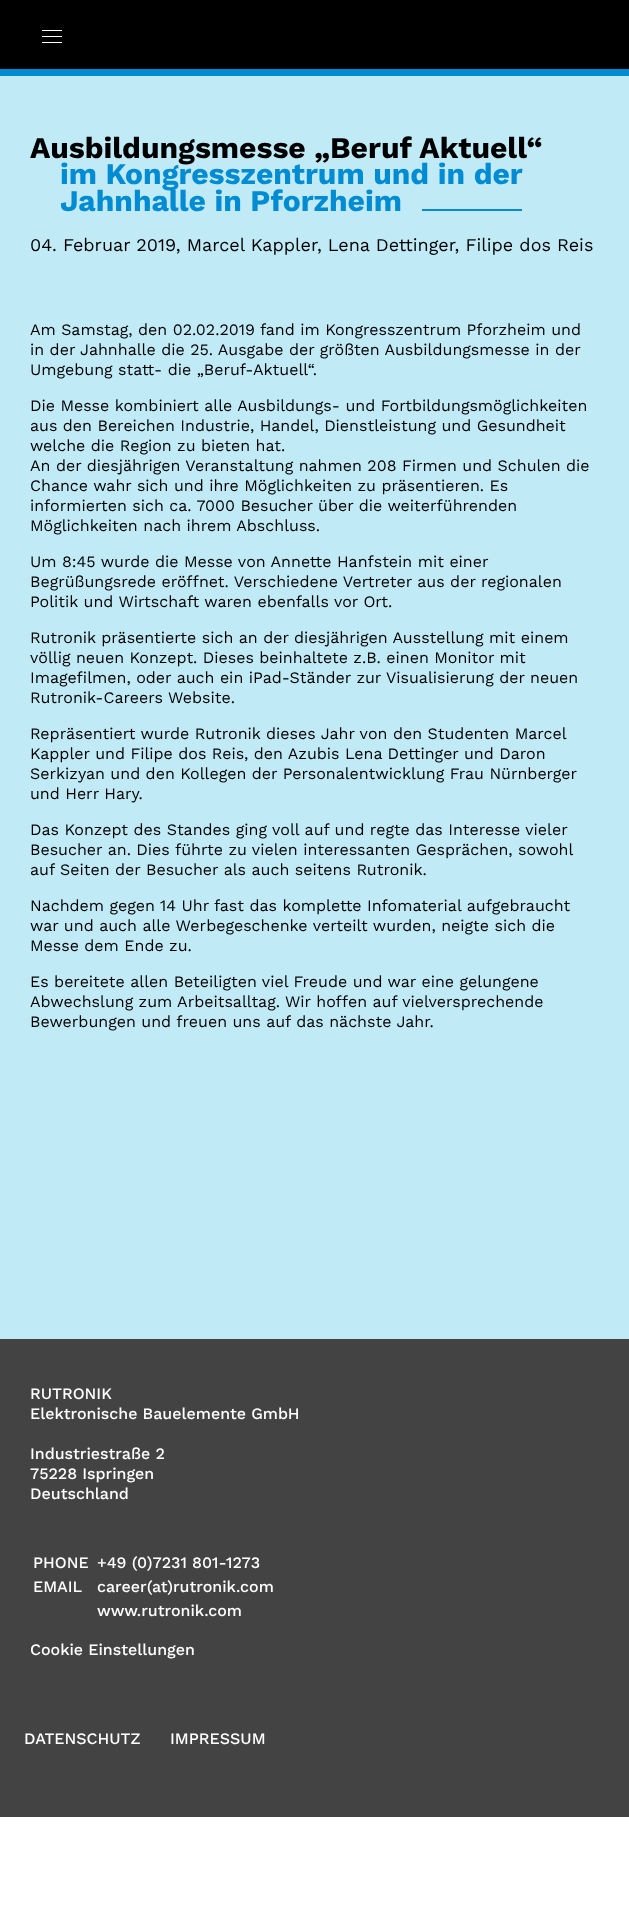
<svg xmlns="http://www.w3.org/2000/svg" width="629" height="1913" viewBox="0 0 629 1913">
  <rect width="100%" height="100%" fill="rgb(255,255,255)"/>
  <rect x="0" y="69" width="629" height="7" fill="rgb(0,139,210)"/>
  <rect x="0" y="0" width="629" height="69" fill="rgb(0,0,0)"/>
  <rect x="42" y="30" width="20" height="1" fill="rgb(255,255,255)"/>
  <rect x="42" y="36" width="20" height="1" fill="rgb(255,255,255)"/>
  <rect x="42" y="42" width="20" height="1" fill="rgb(255,255,255)"/>
  <rect x="0" y="76" width="629" height="1263" fill="rgb(192,234,246)"/>
  <text x="30" y="158" font-family="Work Sans" font-size="30" font-weight="bold" fill="rgb(0,0,0)">Ausbildungsmesse „Beruf Aktuell“</text>
  <g font-family="Work Sans" font-size="30" font-weight="bold" fill="rgb(0,139,210)">
    <text>
      <tspan x="60" y="184">im Kongresszentrum und in der</tspan>
      <tspan x="60" y="211">Jahnhalle in Pforzheim</tspan>
    </text>
  </g>
  <rect x="422" y="209" width="100" height="2" fill="rgb(0,139,210)"/>
  <text x="30" y="251" font-family="Work Sans" font-size="18" fill="rgb(0,0,0)">04. Februar 2019, Marcel Kappler, Lena Dettinger, Filipe dos Reis</text>
  <g font-family="Work Sans" font-size="16" fill="rgb(0,0,0)">
    <text>
      <tspan x="30" y="335">Am Samstag, den 02.02.2019 fand im Kongresszentrum Pforzheim und</tspan>
      <tspan x="30" y="355">in der Jahnhalle die 25. Ausgabe der größten Ausbildungsmesse in der</tspan>
      <tspan x="30" y="375">Umgebung statt- die „Beruf-Aktuell“.</tspan>
    </text>
    <text>
      <tspan x="30" y="411">Die Messe kombiniert alle Ausbildungs- und Fortbildungsmöglichkeiten</tspan>
      <tspan x="30" y="431">aus den Bereichen Industrie, Handel, Dienstleistung und Gesundheit</tspan>
      <tspan x="30" y="451">welche die Region zu bieten hat.</tspan>
      <tspan x="30" y="471">An der diesjährigen Veranstaltung nahmen 208 Firmen und Schulen die</tspan>
      <tspan x="30" y="491">Chance wahr sich und ihre Möglichkeiten zu präsentieren. Es</tspan>
      <tspan x="30" y="511">informierten sich ca. 7000 Besucher über die weiterführenden</tspan>
      <tspan x="30" y="531">Möglichkeiten nach ihrem Abschluss.</tspan>
    </text>
    <text>
      <tspan x="30" y="567">Um 8:45 wurde die Messe von Annette Hanfstein mit einer</tspan>
      <tspan x="30" y="587">Begrüßungsrede eröffnet. Verschiedene Vertreter aus der regionalen</tspan>
      <tspan x="30" y="607">Politik und Wirtschaft waren ebenfalls vor Ort.</tspan>
    </text>
    <text>
      <tspan x="30" y="643">Rutronik präsentierte sich an der diesjährigen Ausstellung mit einem</tspan>
      <tspan x="30" y="663">völlig neuen Konzept. Dieses beinhaltete z.B. einen Monitor mit</tspan>
      <tspan x="30" y="683">Imagefilmen, oder auch ein iPad-Ständer zur Visualisierung der neuen</tspan>
      <tspan x="30" y="703">Rutronik-Careers</tspan>
    </text>
    <text x="168" y="703">Website.</text>
    <text>
      <tspan x="30" y="739">Repräsentiert wurde Rutronik dieses Jahr von den Studenten Marcel</tspan>
      <tspan x="30" y="759">Kappler und Filipe dos Reis, den Azubis Lena Dettinger und Daron</tspan>
      <tspan x="30" y="779">Serkizyan und den Kollegen der Personalentwicklung Frau Nürnberger</tspan>
      <tspan x="30" y="799">und Herr Hary.</tspan>
    </text>
    <text>
      <tspan x="30" y="835">Das Konzept des Standes ging voll auf und regte das Interesse vieler</tspan>
      <tspan x="30" y="855">Besucher an. Dies führte zu vielen interessanten Gesprächen, sowohl</tspan>
      <tspan x="30" y="875">auf Seiten der Besucher als auch seitens Rutronik.</tspan>
    </text>
    <text>
      <tspan x="30" y="911">Nachdem gegen 14 Uhr fast das komplette Infomaterial aufgebraucht</tspan>
      <tspan x="30" y="931">war und auch alle Werbegeschenke verteilt wurden, neigte sich die</tspan>
      <tspan x="30" y="951">Messe dem Ende zu.</tspan>
    </text>
    <text>
      <tspan x="30" y="987">Es bereitete allen Beteiligten viel Freude und war eine gelungene</tspan>
      <tspan x="30" y="1007">Abwechslung zum Arbeitsalltag. Wir hoffen auf vielversprechende</tspan>
      <tspan x="30" y="1027">Bewerbungen und freuen uns auf das nächste Jahr.</tspan>
    </text>
  </g>
  <rect x="0" y="1339" width="629" height="478" fill="rgb(67,67,67)"/>
  <g font-family="Work Sans" font-size="16" font-weight="500" fill="rgb(255,255,255)">
    <text>
      <tspan x="30" y="1399">RUTRONIK</tspan>
      <tspan x="30" y="1419">Elektronische Bauelemente GmbH</tspan>
    </text>
    <text>
      <tspan x="30" y="1459">Industriestraße 2</tspan>
      <tspan x="30" y="1479">75228 Ispringen</tspan>
      <tspan x="30" y="1499">Deutschland</tspan>
    </text>
    <text x="33" y="1568">PHONE</text>
    <text x="97" y="1568">+49 (0)7231 801-1273</text>
    <text x="33" y="1592">EMAIL</text>
    <text>
      <tspan x="97" y="1592">career(at)rutronik.com</tspan>
      <tspan x="97" y="1616">www.rutronik.com</tspan>
    </text>
    <text x="30" y="1655">Cookie Einstellungen</text>
    <text x="24" y="1744">DATENSCHUTZ</text>
    <text x="170" y="1744">IMPRESSUM</text>
  </g>
</svg>
